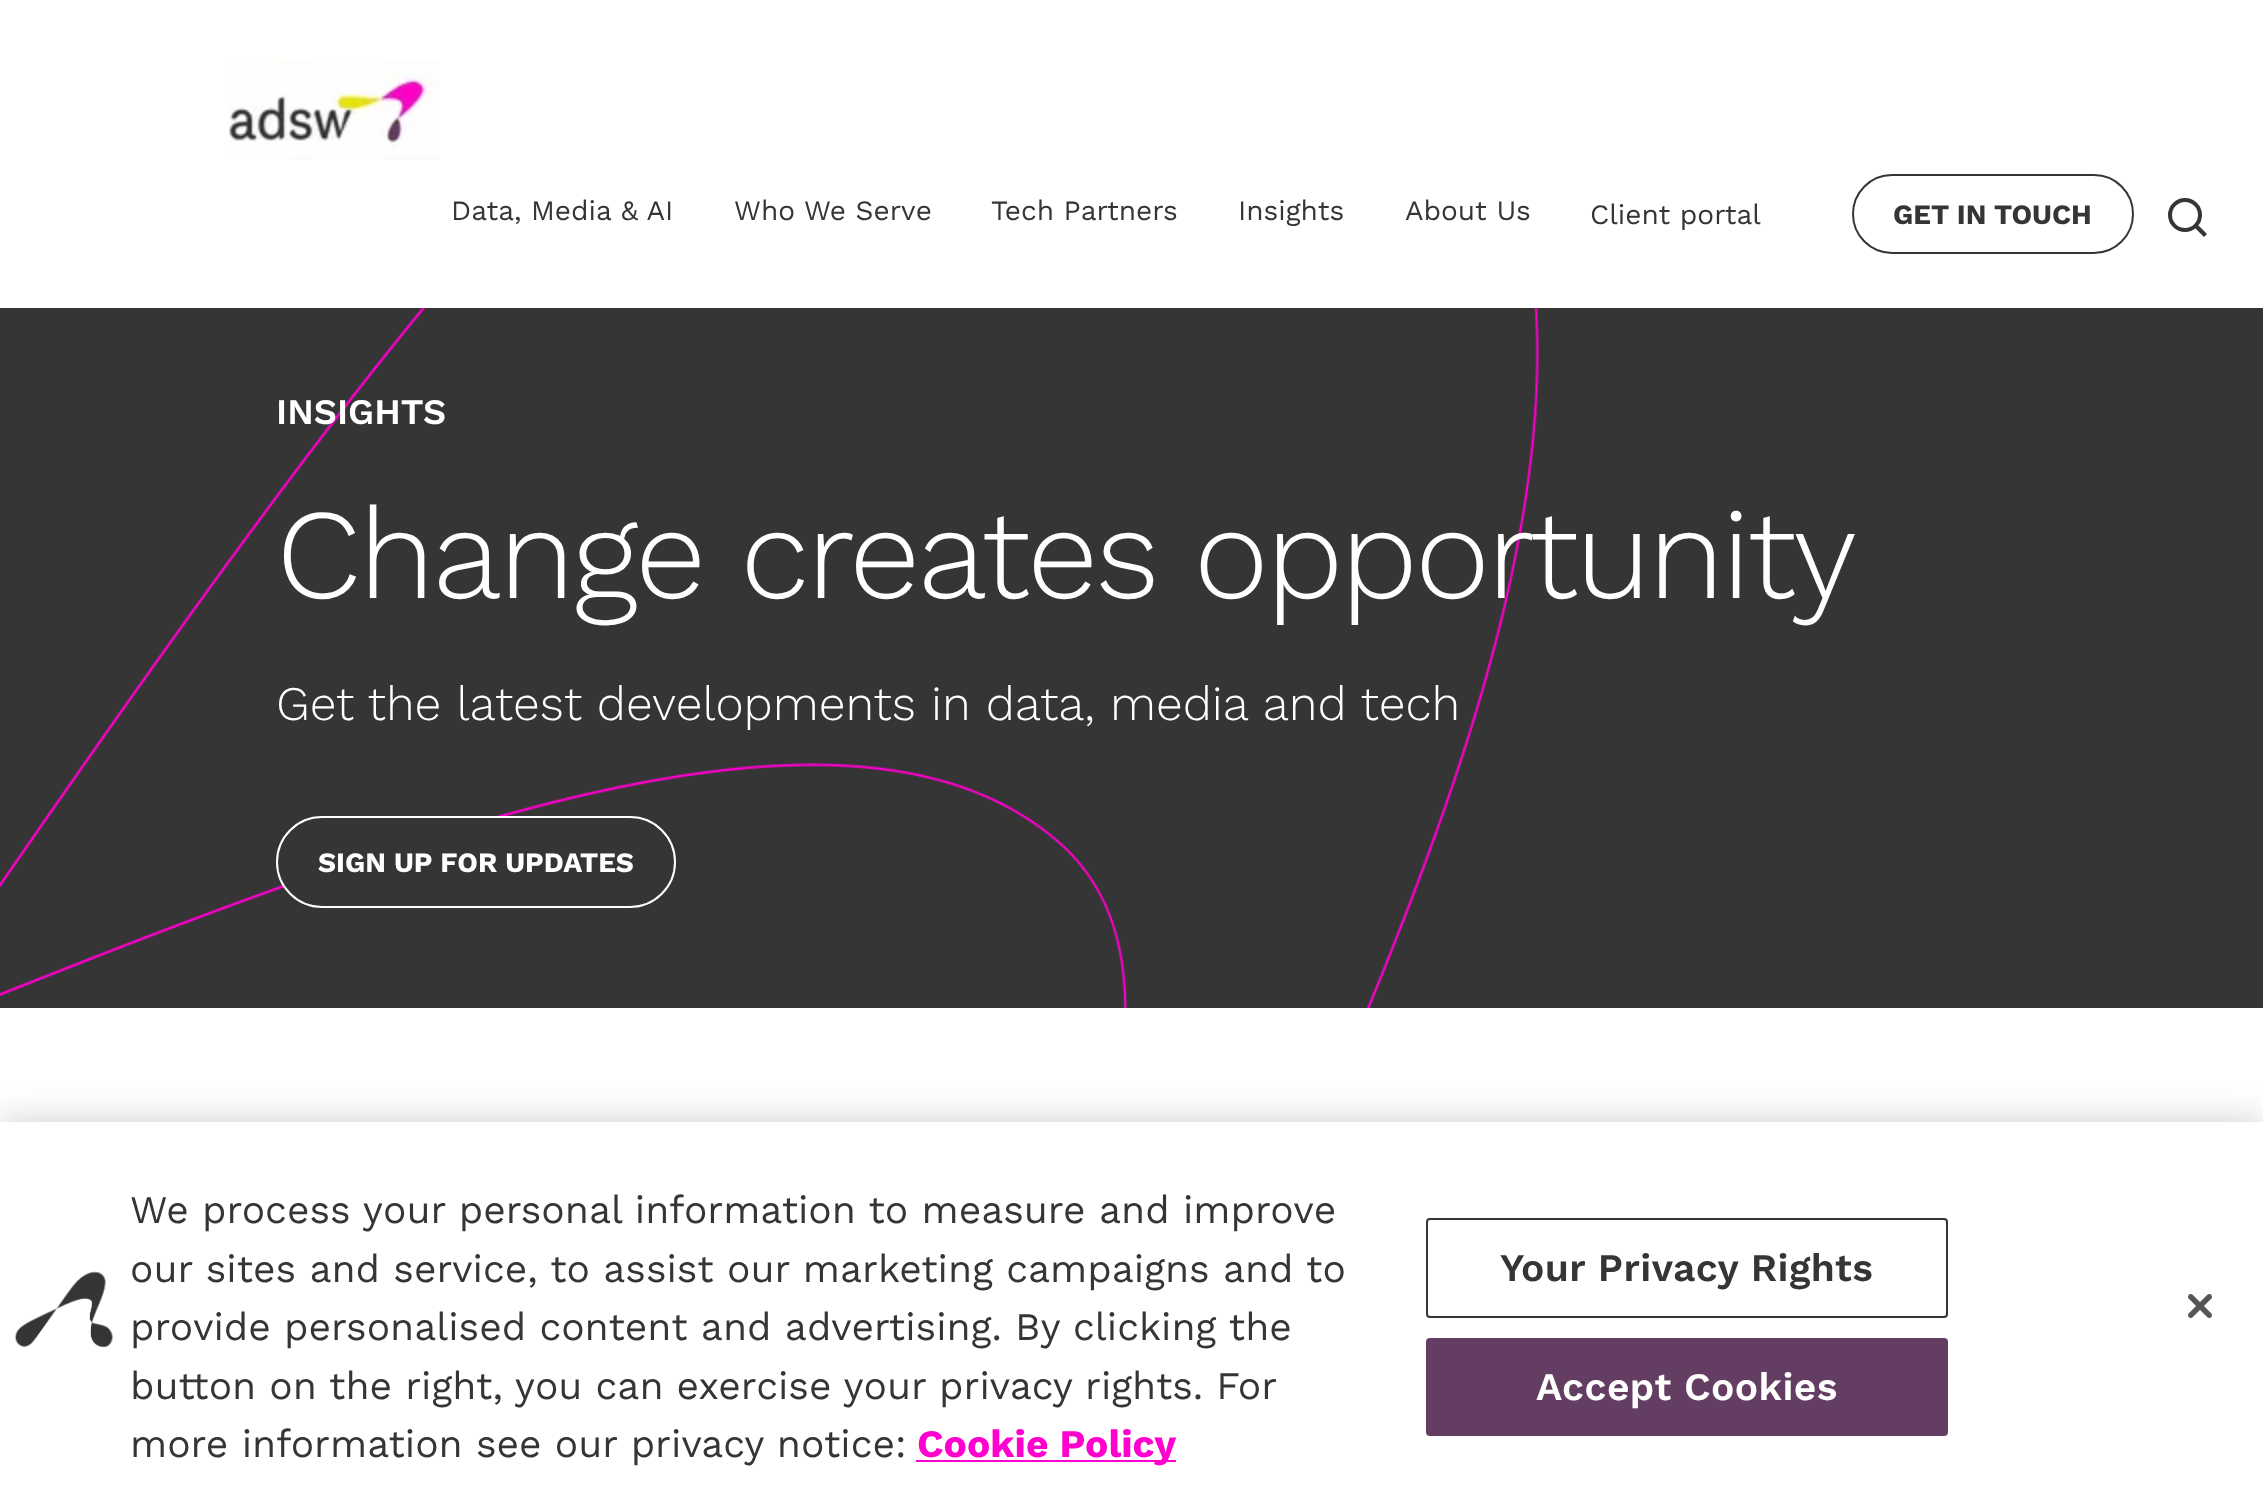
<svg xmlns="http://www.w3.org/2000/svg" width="2263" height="1504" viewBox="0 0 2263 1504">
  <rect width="100%" height="100%" fill="rgb(255,255,255)"/>
  <image x="229" y="60" width="211" height="100" href="pic1.png"/>
  <g font-family="Work Sans" font-size="28" fill="rgb(53,53,53)">
    <text x="451" y="220">Data, Media &amp; AI</text>
    <text x="734" y="220">Who We Serve</text>
    <text x="991" y="220">Tech Partners</text>
    <text x="1238" y="220">Insights</text>
    <text x="1405" y="220">About Us</text>
    <text x="1590" y="224">Client portal</text>
  </g>
  <rect x="1853" y="175" width="280" height="78" rx="39" fill="none" stroke="rgb(53,53,53)" stroke-width="2"/>
  <text x="1893" y="224" font-family="Work Sans" font-size="28" font-weight="bold" fill="rgb(53,53,53)">GET IN TOUCH</text>
  <circle cx="2185" cy="215" r="15" fill="none" stroke="rgb(53,53,53)" stroke-width="4"/>
  <path d="M2196 223L2207 234L2204 237L2193 226Z" fill="rgb(53,53,53)"/>
  <image x="0" y="308" width="2263" height="700" href="pic2.png"/>
  <text x="276" y="424" font-family="Work Sans" font-size="36" font-weight="600" fill="rgb(255,255,255)">INSIGHTS</text>
  <text x="276" y="598" font-family="Work Sans" font-size="128" font-weight="300" letter-spacing="-3.05" fill="rgb(255,255,255)">Change creates opportunity</text>
  <text x="276" y="720" font-family="Work Sans" font-size="48" font-weight="300" fill="rgb(255,255,255)">Get the latest developments in data, media and tech</text>
  <rect x="277" y="817" width="398" height="90" rx="45" fill="rgb(53,53,53)" stroke="rgb(255,255,255)" stroke-width="2"/>
  <text x="318" y="872" font-family="Work Sans" font-size="28" font-weight="bold" fill="rgb(255,255,255)">SIGN UP FOR UPDATES</text>
  <rect x="0" y="1122" width="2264" height="382" fill="rgba(0,0,0,0.2)" filter="blur(18px)"/>
  <rect x="0" y="1122" width="2263" height="382" fill="rgb(255,255,255)"/>
  <image x="15" y="1271" width="98" height="76" href="pic3.png"/>
  <g font-family="Work Sans" font-size="39" fill="rgb(53,53,53)">
    <text>
      <tspan x="130" y="1223">We process your personal information to measure and improve</tspan>
      <tspan x="130" y="1282">our sites and service, to assist our marketing campaigns and to</tspan>
      <tspan x="130" y="1340">provide personalised content and advertising. By clicking the</tspan>
      <tspan x="130" y="1399" word-spacing="-0.25">button on the right, you can exercise your privacy rights. For</tspan>
      <tspan x="130" y="1457">more information see our privacy notice:</tspan>
    </text>
  </g>
  <rect x="916" y="1460" width="260" height="2" fill="rgb(255,0,206)"/>
  <text x="917" y="1457" font-family="Work Sans" font-size="39" font-weight="bold" fill="rgb(255,0,206)">Cookie Policy</text>
  <rect x="1427" y="1219" width="520" height="98" rx="3" fill="none" stroke="rgb(53,53,53)" stroke-width="2"/>
  <text x="1500" y="1281" font-family="Work Sans" font-size="39" font-weight="600" letter-spacing="0.4" fill="rgb(53,53,53)">Your Privacy Rights</text>
  <rect x="1427" y="1339" width="520" height="96" rx="3" fill="rgb(100,61,98)" stroke="rgb(100,61,98)" stroke-width="2"/>
  <text x="1536" y="1400" font-family="Work Sans" font-size="39" font-weight="600" letter-spacing="0.4" fill="rgb(255,255,255)">Accept Cookies</text>
  <image x="2188" y="1294" width="24" height="24" href="pic4.png"/>
</svg>
